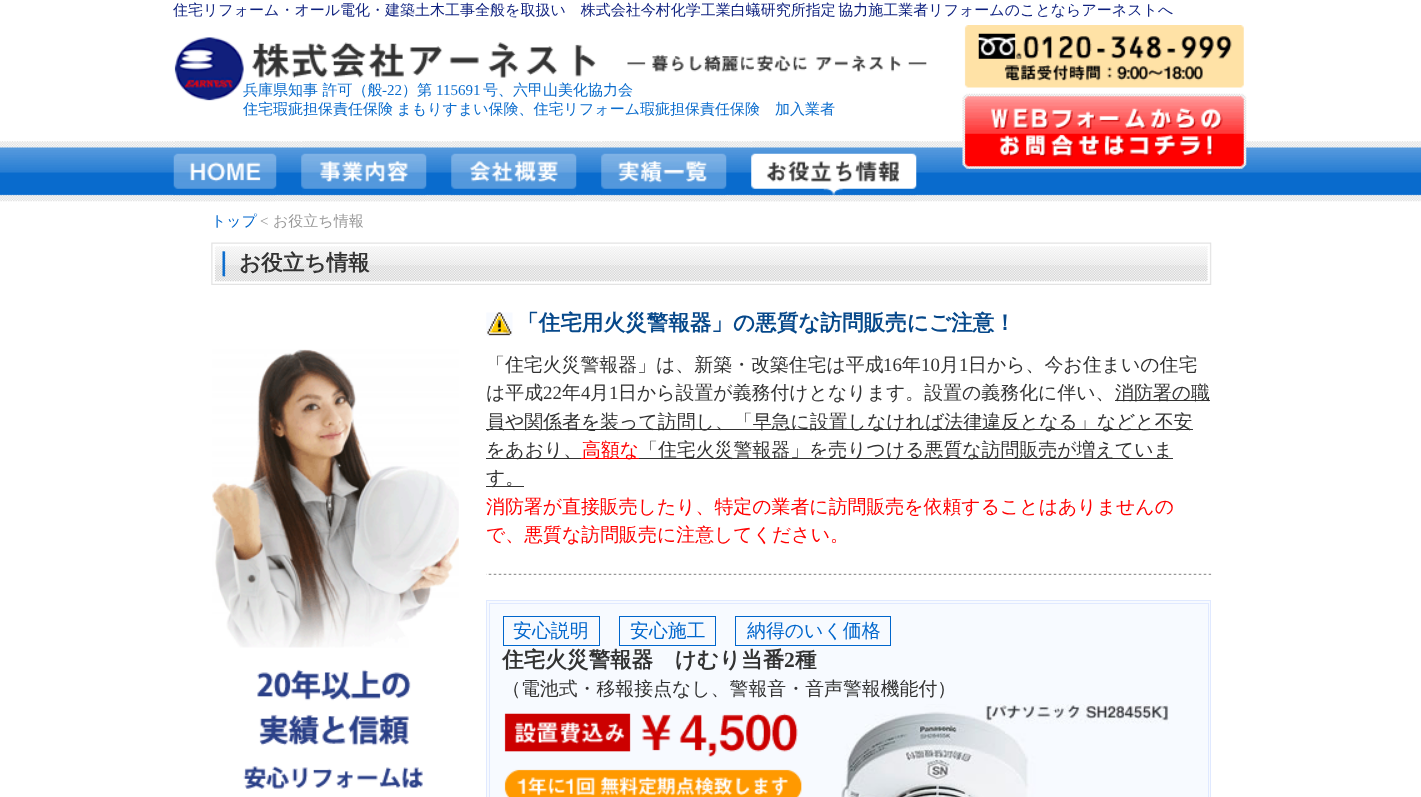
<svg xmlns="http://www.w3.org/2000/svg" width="1421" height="797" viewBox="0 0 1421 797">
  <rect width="100%" height="100%" fill="rgb(255,255,255)"/>
  <image x="0" y="141" width="1421" height="61" href="pic1.png"/>
  <text x="173" y="15" word-spacing="-2" font-family="WenQuanYi Zen Hei" font-size="15" font-weight="500" fill="rgb(12,31,126)">住宅リフォーム・オール電化・建築土木工事全般を取扱い　株式会社今村化学工業白蟻研究所指定 協力施工業者リフォームのことならアーネストへ</text>
  <image x="174" y="37" width="70" height="64" href="pic2.png"/>
  <image x="243" y="42" width="684" height="36" href="pic3.png"/>
  <text x="243" y="95" font-family="WenQuanYi Zen Hei" font-size="15" font-weight="500" fill="rgb(10,108,205)">兵庫県知事 許可（般</text>
  <text x="382" y="95" font-family="Liberation Serif" font-size="15" fill="rgb(10,108,205)">-22</text>
  <text x="402" y="95" font-family="WenQuanYi Zen Hei" font-size="15" font-weight="500" fill="rgb(10,108,205)">）第</text>
  <text x="436" y="95" font-family="Liberation Serif" font-size="15" fill="rgb(10,108,205)">115691</text>
  <g font-family="WenQuanYi Zen Hei" font-size="15" font-weight="500" fill="rgb(10,108,205)">
    <text x="483" y="95">号、六甲山美化協力会</text>
    <text x="243" y="114" word-spacing="-1">住宅瑕疵担保責任保険 まもりすまい保険、住宅リフォーム瑕疵担保責任保険　加入業者</text>
  </g>
  <image x="173" y="141" width="104" height="61" href="pic4.png"/>
  <image x="301" y="141" width="126" height="61" href="pic5.png"/>
  <image x="451" y="141" width="126" height="61" href="pic6.png"/>
  <image x="601" y="141" width="126" height="61" href="pic7.png"/>
  <image x="751" y="141" width="166" height="61" href="pic8.png"/>
  <image x="964" y="25" width="280" height="63" href="pic9.png"/>
  <image x="962" y="93" width="285" height="76" href="pic10.png"/>
  <text x="211" y="226" font-family="WenQuanYi Zen Hei" font-size="15" font-weight="500" fill="rgb(0,102,204)">トップ</text>
  <text x="260" y="226" font-family="Liberation Serif" font-size="15" fill="rgb(153,153,153)">&lt;</text>
  <text x="273" y="226" font-family="WenQuanYi Zen Hei" font-size="15" font-weight="500" fill="rgb(153,153,153)">お役立ち情報</text>
  <image x="211" y="242" width="1001" height="43" href="pic11.png"/>
  <text x="239" y="270" font-family="WenQuanYi Zen Hei" font-size="21.6" font-weight="bold" fill="rgb(51,51,51)">お役立ち情報</text>
  <image x="212" y="349" width="247" height="440" href="pic12.png"/>
  <image x="486" y="312" width="27" height="24" href="pic13.png"/>
  <text x="517" y="330" font-family="WenQuanYi Zen Hei" font-size="21.6" font-weight="bold" fill="rgb(6,72,138)">「住宅用火災警報器」の悪質な訪問販売にご注意！</text>
  <image x="486" y="573" width="726" height="2" href="pic14.png"/>
  <text x="486" y="371" font-family="WenQuanYi Zen Hei" font-size="18.9" font-weight="500" fill="rgb(51,51,51)">「住宅火災警報器」は、新築・改築住宅は平成</text>
  <text x="883" y="371" font-family="Liberation Serif" font-size="18.9" fill="rgb(51,51,51)">16</text>
  <text x="902" y="371" font-family="WenQuanYi Zen Hei" font-size="18.9" font-weight="500" fill="rgb(51,51,51)">年</text>
  <text x="921" y="371" font-family="Liberation Serif" font-size="18.9" fill="rgb(51,51,51)">10</text>
  <text x="940" y="371" font-family="WenQuanYi Zen Hei" font-size="18.9" font-weight="500" fill="rgb(51,51,51)">月</text>
  <text x="959" y="371" font-family="Liberation Serif" font-size="18.9" fill="rgb(51,51,51)">1</text>
  <g font-family="WenQuanYi Zen Hei" font-size="18.9" font-weight="500" fill="rgb(51,51,51)">
    <text x="968" y="371">日から、今お住まいの住宅</text>
    <text x="486" y="399">は平成</text>
  </g>
  <text x="543" y="399" font-family="Liberation Serif" font-size="18.9" fill="rgb(51,51,51)">22</text>
  <text x="562" y="399" font-family="WenQuanYi Zen Hei" font-size="18.9" font-weight="500" fill="rgb(51,51,51)">年</text>
  <text x="581" y="399" font-family="Liberation Serif" font-size="18.9" fill="rgb(51,51,51)">4</text>
  <text x="590" y="399" font-family="WenQuanYi Zen Hei" font-size="18.9" font-weight="500" fill="rgb(51,51,51)">月</text>
  <text x="609" y="399" font-family="Liberation Serif" font-size="18.9" fill="rgb(51,51,51)">1</text>
  <text x="618" y="399" font-family="WenQuanYi Zen Hei" font-size="18.9" font-weight="500" fill="rgb(51,51,51)">日から設置が義務付けとなります。設置の義務化に伴い、</text>
  <rect x="1115" y="400" width="95" height="1" fill="rgb(51,51,51)"/>
  <text x="1115" y="399" font-family="WenQuanYi Zen Hei" font-size="18.9" font-weight="500" fill="rgb(51,51,51)">消防署の職</text>
  <rect x="486" y="429" width="707" height="1" fill="rgb(51,51,51)"/>
  <text x="486" y="428" font-family="WenQuanYi Zen Hei" font-size="18.9" font-weight="500" fill="rgb(51,51,51)">員や関係者を装って訪問し、「早急に設置しなければ法律違反となる」などと不安</text>
  <rect x="486" y="458" width="95" height="1" fill="rgb(51,51,51)"/>
  <text x="486" y="456" font-family="WenQuanYi Zen Hei" font-size="18.9" font-weight="500" fill="rgb(51,51,51)">をあおり、</text>
  <rect x="581" y="458" width="58" height="1" fill="rgb(255,0,0)"/>
  <text x="582" y="456" font-family="WenQuanYi Zen Hei" font-size="18.9" font-weight="500" fill="rgb(255,0,0)">高額な</text>
  <rect x="639" y="458" width="534" height="1" fill="rgb(51,51,51)"/>
  <text x="639" y="456" font-family="WenQuanYi Zen Hei" font-size="18.9" font-weight="500" fill="rgb(51,51,51)">「住宅火災警報器」を売りつける悪質な訪問販売が増えていま</text>
  <rect x="486" y="486" width="38" height="1" fill="rgb(51,51,51)"/>
  <text x="486" y="484" font-family="WenQuanYi Zen Hei" font-size="18.9" font-weight="500" fill="rgb(51,51,51)">す。</text>
  <g font-family="WenQuanYi Zen Hei" font-size="18.9" font-weight="500" fill="rgb(255,0,0)">
    <text>
      <tspan x="486" y="513">消防署が直接販売したり、特定の業者に訪問販売を依頼することはありませんの</tspan>
      <tspan x="486" y="541">で、悪質な訪問販売に注意してください。</tspan>
    </text>
  </g>
  <rect x="486.5" y="600.5" width="724" height="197" fill="rgb(247,250,255)" stroke="rgb(224,233,255)"/>
  <rect x="489.5" y="603.5" width="719" height="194" fill="none" stroke="rgb(224,233,255)"/>
  <rect x="503.5" y="616.5" width="96" height="29" fill="none" stroke="rgb(0,102,204)"/>
  <text x="513" y="637" font-family="WenQuanYi Zen Hei" font-size="18.9" font-weight="500" fill="rgb(0,102,204)">安心説明</text>
  <rect x="619.5" y="616.5" width="96" height="29" fill="none" stroke="rgb(0,102,204)"/>
  <text x="630" y="637" font-family="WenQuanYi Zen Hei" font-size="18.9" font-weight="500" fill="rgb(0,102,204)">安心施工</text>
  <rect x="735.5" y="616.5" width="155" height="29" fill="none" stroke="rgb(0,102,204)"/>
  <text x="747" y="637" font-family="WenQuanYi Zen Hei" font-size="18.9" font-weight="500" fill="rgb(0,102,204)">納得のいく価格</text>
  <text x="502" y="667" font-family="WenQuanYi Zen Hei" font-size="21.6" font-weight="bold" fill="rgb(51,51,51)">住宅火災警報器　けむり当番</text>
  <text x="784" y="667" font-family="Liberation Serif" font-size="21.6" font-weight="bold" fill="rgb(51,51,51)">2</text>
  <text x="795" y="667" font-family="WenQuanYi Zen Hei" font-size="21.6" font-weight="bold" fill="rgb(51,51,51)">種</text>
  <text x="502" y="695" font-family="WenQuanYi Zen Hei" font-size="18.9" font-weight="500" fill="rgb(51,51,51)">（電池式・移報接点なし、警報音・音声警報機能付）</text>
  <image x="504" y="713" width="294" height="44" href="pic15.png"/>
  <image x="504" y="769" width="298" height="28" href="pic16.png"/>
  <image x="841" y="704" width="328" height="93" href="pic17.png"/>
</svg>
